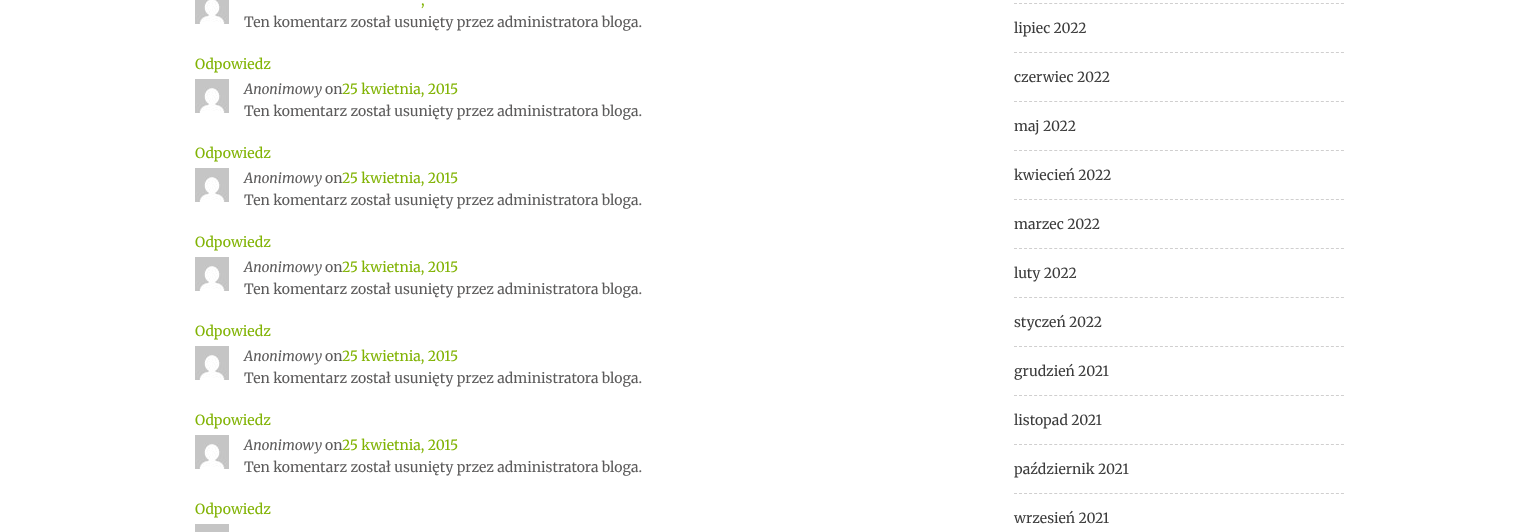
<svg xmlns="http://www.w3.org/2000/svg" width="1517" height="532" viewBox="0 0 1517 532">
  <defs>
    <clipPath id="clip1"><rect x="1014" y="0" width="330" height="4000"/></clipPath>
  </defs>
  <rect width="100%" height="100%" fill="rgb(255,255,255)"/>
  <image x="195" y="0" width="34" height="24" href="pic1.png"/>
  <text x="421" y="5" font-family="Merriweather" font-size="14" fill="rgb(129,179,4)">,</text>
  <text x="244" y="27" font-family="Merriweather" font-size="14" fill="rgb(92,91,91)">Ten komentarz został usunięty przez administratora bloga.</text>
  <text x="195" y="69" font-family="Merriweather" font-size="14" fill="rgb(129,179,4)">Odpowiedz</text>
  <image x="195" y="79" width="34" height="34" href="pic2.png"/>
  <text x="244" y="94" font-family="Merriweather" font-size="14" font-style="italic" fill="rgb(92,91,91)">Anonimowy</text>
  <text x="325" y="94" font-family="Merriweather" font-size="14" fill="rgb(92,91,91)">on</text>
  <text x="342" y="94" font-family="Merriweather" font-size="14" fill="rgb(129,179,4)">25 kwietnia, 2015</text>
  <text x="244" y="116" font-family="Merriweather" font-size="14" fill="rgb(92,91,91)">Ten komentarz został usunięty przez administratora bloga.</text>
  <text x="195" y="158" font-family="Merriweather" font-size="14" fill="rgb(129,179,4)">Odpowiedz</text>
  <image x="195" y="168" width="34" height="34" href="pic2.png"/>
  <text x="244" y="183" font-family="Merriweather" font-size="14" font-style="italic" fill="rgb(92,91,91)">Anonimowy</text>
  <text x="325" y="183" font-family="Merriweather" font-size="14" fill="rgb(92,91,91)">on</text>
  <text x="342" y="183" font-family="Merriweather" font-size="14" fill="rgb(129,179,4)">25 kwietnia, 2015</text>
  <text x="244" y="205" font-family="Merriweather" font-size="14" fill="rgb(92,91,91)">Ten komentarz został usunięty przez administratora bloga.</text>
  <text x="195" y="247" font-family="Merriweather" font-size="14" fill="rgb(129,179,4)">Odpowiedz</text>
  <image x="195" y="257" width="34" height="34" href="pic2.png"/>
  <text x="244" y="272" font-family="Merriweather" font-size="14" font-style="italic" fill="rgb(92,91,91)">Anonimowy</text>
  <text x="325" y="272" font-family="Merriweather" font-size="14" fill="rgb(92,91,91)">on</text>
  <text x="342" y="272" font-family="Merriweather" font-size="14" fill="rgb(129,179,4)">25 kwietnia, 2015</text>
  <text x="244" y="294" font-family="Merriweather" font-size="14" fill="rgb(92,91,91)">Ten komentarz został usunięty przez administratora bloga.</text>
  <text x="195" y="336" font-family="Merriweather" font-size="14" fill="rgb(129,179,4)">Odpowiedz</text>
  <image x="195" y="346" width="34" height="34" href="pic2.png"/>
  <text x="244" y="361" font-family="Merriweather" font-size="14" font-style="italic" fill="rgb(92,91,91)">Anonimowy</text>
  <text x="325" y="361" font-family="Merriweather" font-size="14" fill="rgb(92,91,91)">on</text>
  <text x="342" y="361" font-family="Merriweather" font-size="14" fill="rgb(129,179,4)">25 kwietnia, 2015</text>
  <text x="244" y="383" font-family="Merriweather" font-size="14" fill="rgb(92,91,91)">Ten komentarz został usunięty przez administratora bloga.</text>
  <text x="195" y="425" font-family="Merriweather" font-size="14" fill="rgb(129,179,4)">Odpowiedz</text>
  <image x="195" y="435" width="34" height="34" href="pic2.png"/>
  <text x="244" y="450" font-family="Merriweather" font-size="14" font-style="italic" fill="rgb(92,91,91)">Anonimowy</text>
  <text x="325" y="450" font-family="Merriweather" font-size="14" fill="rgb(92,91,91)">on</text>
  <text x="342" y="450" font-family="Merriweather" font-size="14" fill="rgb(129,179,4)">25 kwietnia, 2015</text>
  <text x="244" y="472" font-family="Merriweather" font-size="14" fill="rgb(92,91,91)">Ten komentarz został usunięty przez administratora bloga.</text>
  <text x="195" y="514" font-family="Merriweather" font-size="14" fill="rgb(129,179,4)">Odpowiedz</text>
  <rect x="195" y="524" width="34" height="8" fill="rgb(197,197,197)"/>
  <path d="M1014 3.5H1344" fill="none" stroke="rgb(208,207,207)" stroke-dasharray="3 2.03"/>
  <path d="M1014 52.5H1344" fill="none" stroke="rgb(208,207,207)" stroke-dasharray="3 2.03"/>
  <text x="1014" y="33" font-family="Merriweather" font-size="14" fill="rgb(59,59,59)">lipiec 2022</text>
  <path d="M1014 101.5H1344" fill="none" stroke="rgb(208,207,207)" stroke-dasharray="3 2.03"/>
  <text x="1014" y="82" font-family="Merriweather" font-size="14" fill="rgb(59,59,59)">czerwiec 2022</text>
  <path d="M1014 150.5H1344" fill="none" stroke="rgb(208,207,207)" stroke-dasharray="3 2.03"/>
  <text x="1014" y="131" font-family="Merriweather" font-size="14" fill="rgb(59,59,59)">maj 2022</text>
  <path d="M1014 199.5H1344" fill="none" stroke="rgb(208,207,207)" stroke-dasharray="3 2.03"/>
  <text x="1014" y="180" font-family="Merriweather" font-size="14" fill="rgb(59,59,59)">kwiecień 2022</text>
  <path d="M1014 248.5H1344" fill="none" stroke="rgb(208,207,207)" stroke-dasharray="3 2.03"/>
  <text x="1014" y="229" font-family="Merriweather" font-size="14" fill="rgb(59,59,59)">marzec 2022</text>
  <path d="M1014 297.5H1344" fill="none" stroke="rgb(208,207,207)" stroke-dasharray="3 2.03"/>
  <text x="1014" y="278" font-family="Merriweather" font-size="14" fill="rgb(59,59,59)">luty 2022</text>
  <path d="M1014 346.5H1344" fill="none" stroke="rgb(208,207,207)" stroke-dasharray="3 2.03"/>
  <text x="1014" y="327" font-family="Merriweather" font-size="14" fill="rgb(59,59,59)">styczeń 2022</text>
  <path d="M1014 395.5H1344" fill="none" stroke="rgb(208,207,207)" stroke-dasharray="3 2.03"/>
  <text x="1014" y="376" font-family="Merriweather" font-size="14" fill="rgb(59,59,59)">grudzień 2021</text>
  <path d="M1014 444.5H1344" fill="none" stroke="rgb(208,207,207)" stroke-dasharray="3 2.03"/>
  <text x="1014" y="425" font-family="Merriweather" font-size="14" fill="rgb(59,59,59)">listopad 2021</text>
  <path d="M1014 493.5H1344" fill="none" stroke="rgb(208,207,207)" stroke-dasharray="3 2.03"/>
  <g clip-path="url(#clip1)">
    <text x="1014" y="474" font-family="Merriweather" font-size="14" fill="rgb(59,59,59)">październik 2021</text>
  </g>
  <text x="1014" y="523" font-family="Merriweather" font-size="14" fill="rgb(59,59,59)">wrzesień 2021</text>
</svg>
